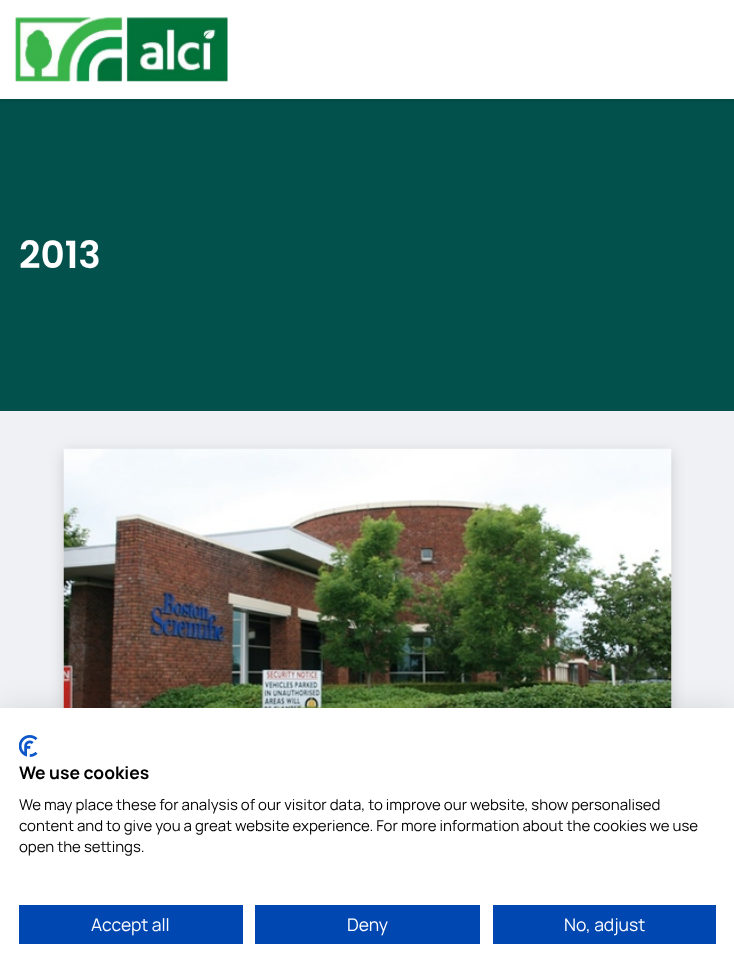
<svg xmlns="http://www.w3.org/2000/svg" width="734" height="977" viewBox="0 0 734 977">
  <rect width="100%" height="100%" fill="rgb(240,241,244)"/>
  <rect x="0" y="99" width="734" height="312" fill="rgb(2,81,77)"/>
  <rect x="0" y="1" width="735" height="99" fill="rgba(0,0,0,0.16)" filter="blur(2.5px)"/>
  <rect x="0" y="0" width="734" height="99" fill="rgb(255,255,255)"/>
  <image x="15" y="17" width="213" height="65" href="pic1.png"/>
  <text x="19" y="268" font-family="Poppins" font-size="37.5" font-weight="600" fill="rgb(255,255,255)">2013</text>
  <rect x="64" y="453" width="607" height="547" fill="rgba(0,0,0,0.16)" filter="blur(7.5px)"/>
  <image x="63" y="448" width="609" height="260" href="pic2.png"/>
  <rect x="0" y="708" width="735" height="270" fill="rgba(0,0,0,0.1)" filter="blur(15px)"/>
  <rect x="0" y="708" width="734" height="269" fill="rgb(255,255,255)"/>
  <image x="19" y="735" width="19" height="22" href="pic3.png"/>
  <text x="19" y="779" font-family="Manrope" font-size="17.5" font-weight="200" fill="rgb(0,0,0)">We use cookies</text>
  <g font-family="'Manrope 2'" font-size="15" font-weight="200" fill="rgb(0,0,0)">
    <text>
      <tspan x="19" y="810">We may place these for analysis of our visitor data, to improve our website, show personalised</tspan>
      <tspan x="19" y="831">content and to give you a great website experience. For more information about the cookies we use</tspan>
      <tspan x="19" y="852">open the settings.</tspan>
    </text>
  </g>
  <rect x="19" y="905" width="224" height="39" fill="rgb(0,71,178)"/>
  <text x="91" y="931" font-family="'Manrope 2'" font-size="17.5" font-weight="200" fill="rgb(255,255,255)">Accept all</text>
  <rect x="255" y="905" width="225" height="39" fill="rgb(0,71,178)"/>
  <text x="347" y="931" font-family="'Manrope 2'" font-size="17.5" font-weight="200" fill="rgb(255,255,255)">Deny</text>
  <rect x="493" y="905" width="223" height="39" fill="rgb(0,71,178)"/>
  <text x="564" y="931" font-family="'Manrope 2'" font-size="17.5" font-weight="200" fill="rgb(255,255,255)">No, adjust</text>
</svg>
